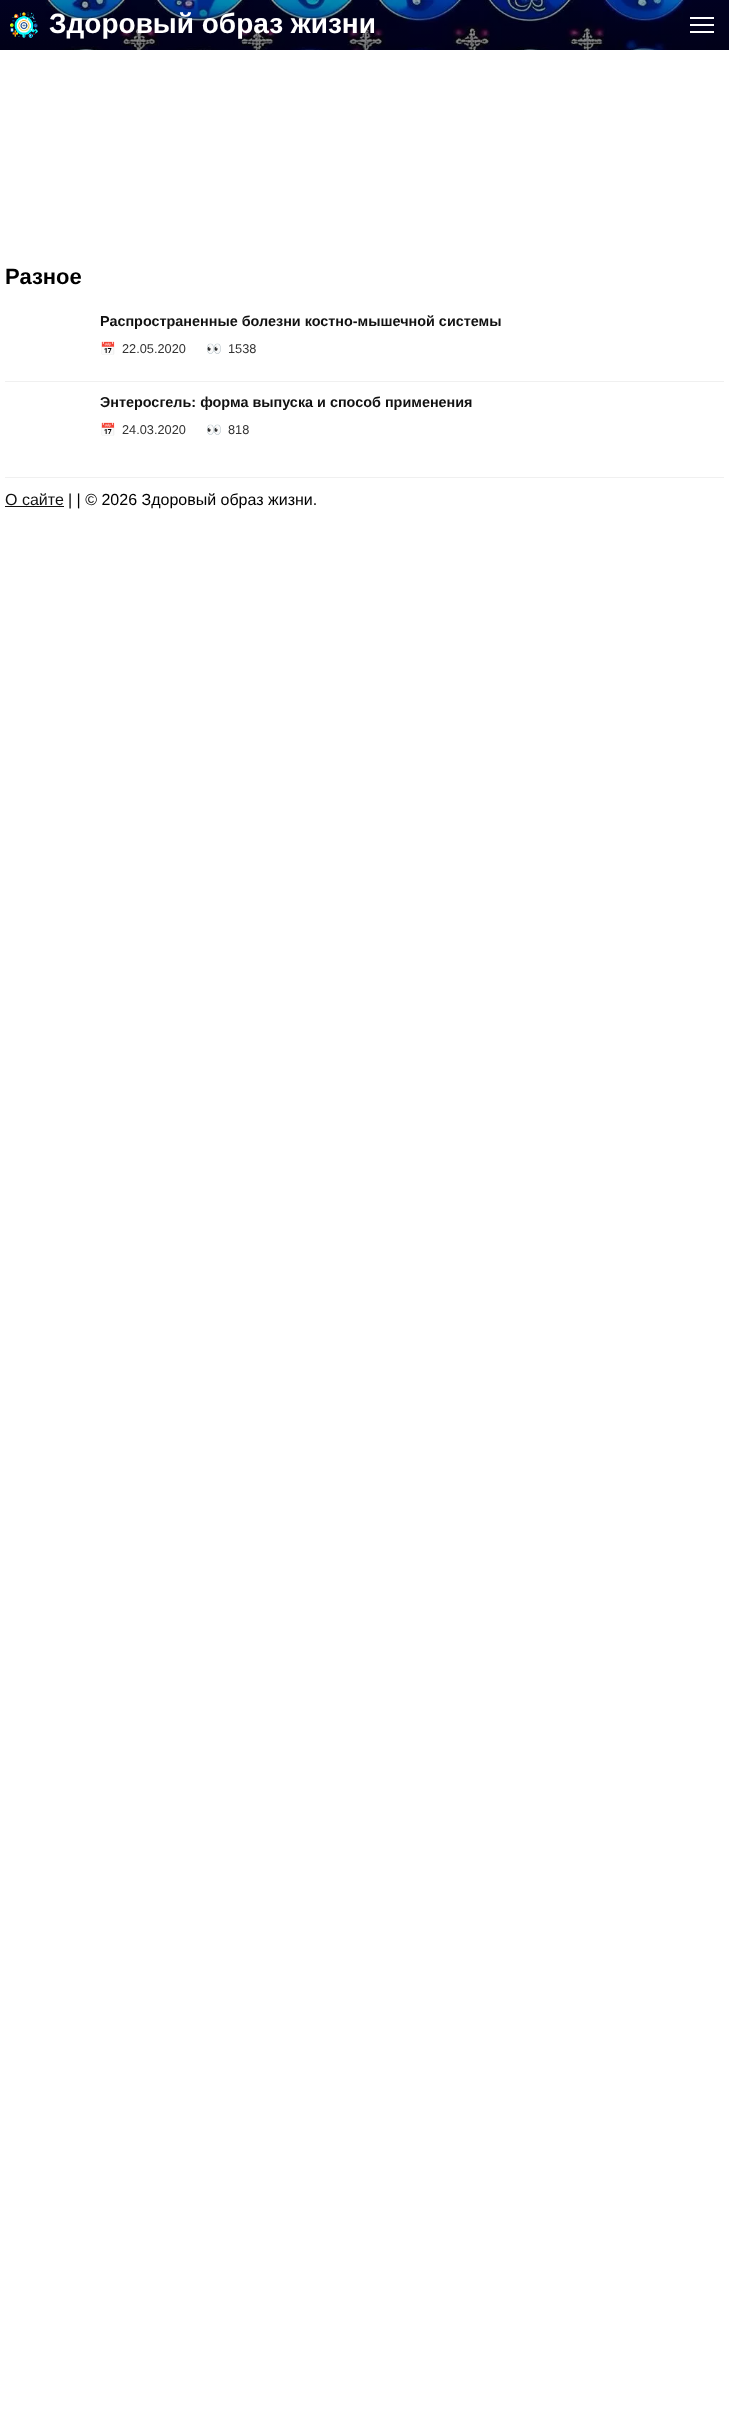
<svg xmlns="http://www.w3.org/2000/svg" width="729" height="2417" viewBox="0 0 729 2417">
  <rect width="100%" height="100%" fill="rgb(255,255,255)"/>
  <image x="0" y="0" width="729" height="50" href="pic1.png"/>
  <image x="10" y="12" width="28" height="27" href="pic2.png"/>
  <text x="49" y="33" font-family="Liberation Sans" font-size="28" font-weight="bold" fill="rgb(255,255,255)">Здоровый образ жизни</text>
  <rect x="690" y="17" width="24" height="2" fill="rgb(255,255,255)"/>
  <rect x="690" y="24" width="24" height="2" fill="rgb(255,255,255)"/>
  <rect x="690" y="31" width="24" height="2" fill="rgb(255,255,255)"/>
  <text x="5" y="284" font-family="Liberation Sans" font-size="22" font-weight="bold" fill="rgb(0,0,0)">Разное</text>
  <rect x="5" y="381" width="719" height="1" fill="rgb(240,240,240)"/>
  <text x="100" y="326" font-family="Liberation Sans" font-size="14.4" font-weight="bold" fill="rgb(17,17,17)">Распространенные болезни костно-мышечной системы</text>
  <text x="100" y="353" font-family="Noto Color Emoji" font-size="12.75" fill="rgb(249,254,97)">📅</text>
  <text x="122" y="353" font-family="Liberation Sans" font-size="12.75" fill="rgb(51,51,51)">22.05.2020</text>
  <text x="206" y="353" font-family="Noto Color Emoji" font-size="12.75" fill="rgb(249,254,97)">👀</text>
  <text x="228" y="353" font-family="Liberation Sans" font-size="12.75" fill="rgb(51,51,51)">1538</text>
  <rect x="5" y="477" width="719" height="1" fill="rgb(240,240,240)"/>
  <text x="100" y="407" font-family="Liberation Sans" font-size="14.4" font-weight="bold" fill="rgb(17,17,17)">Энтеросгель: форма выпуска и способ применения</text>
  <text x="100" y="434" font-family="Noto Color Emoji" font-size="12.75" fill="rgb(249,254,97)">📅</text>
  <text x="122" y="434" font-family="Liberation Sans" font-size="12.75" fill="rgb(51,51,51)">24.03.2020</text>
  <text x="206" y="434" font-family="Noto Color Emoji" font-size="12.75" fill="rgb(249,254,97)">👀</text>
  <text x="228" y="434" font-family="Liberation Sans" font-size="12.75" fill="rgb(51,51,51)">818</text>
  <text x="5" y="505" font-family="Liberation Sans" font-size="16" fill="rgb(17,17,17)">О сайте</text>
  <rect x="5" y="506" width="59" height="1" fill="rgb(17,17,17)"/>
  <text x="68" y="505" font-family="Liberation Sans" font-size="16" fill="rgb(0,0,0)">| | © 2026 Здоровый образ жизни.</text>
</svg>
